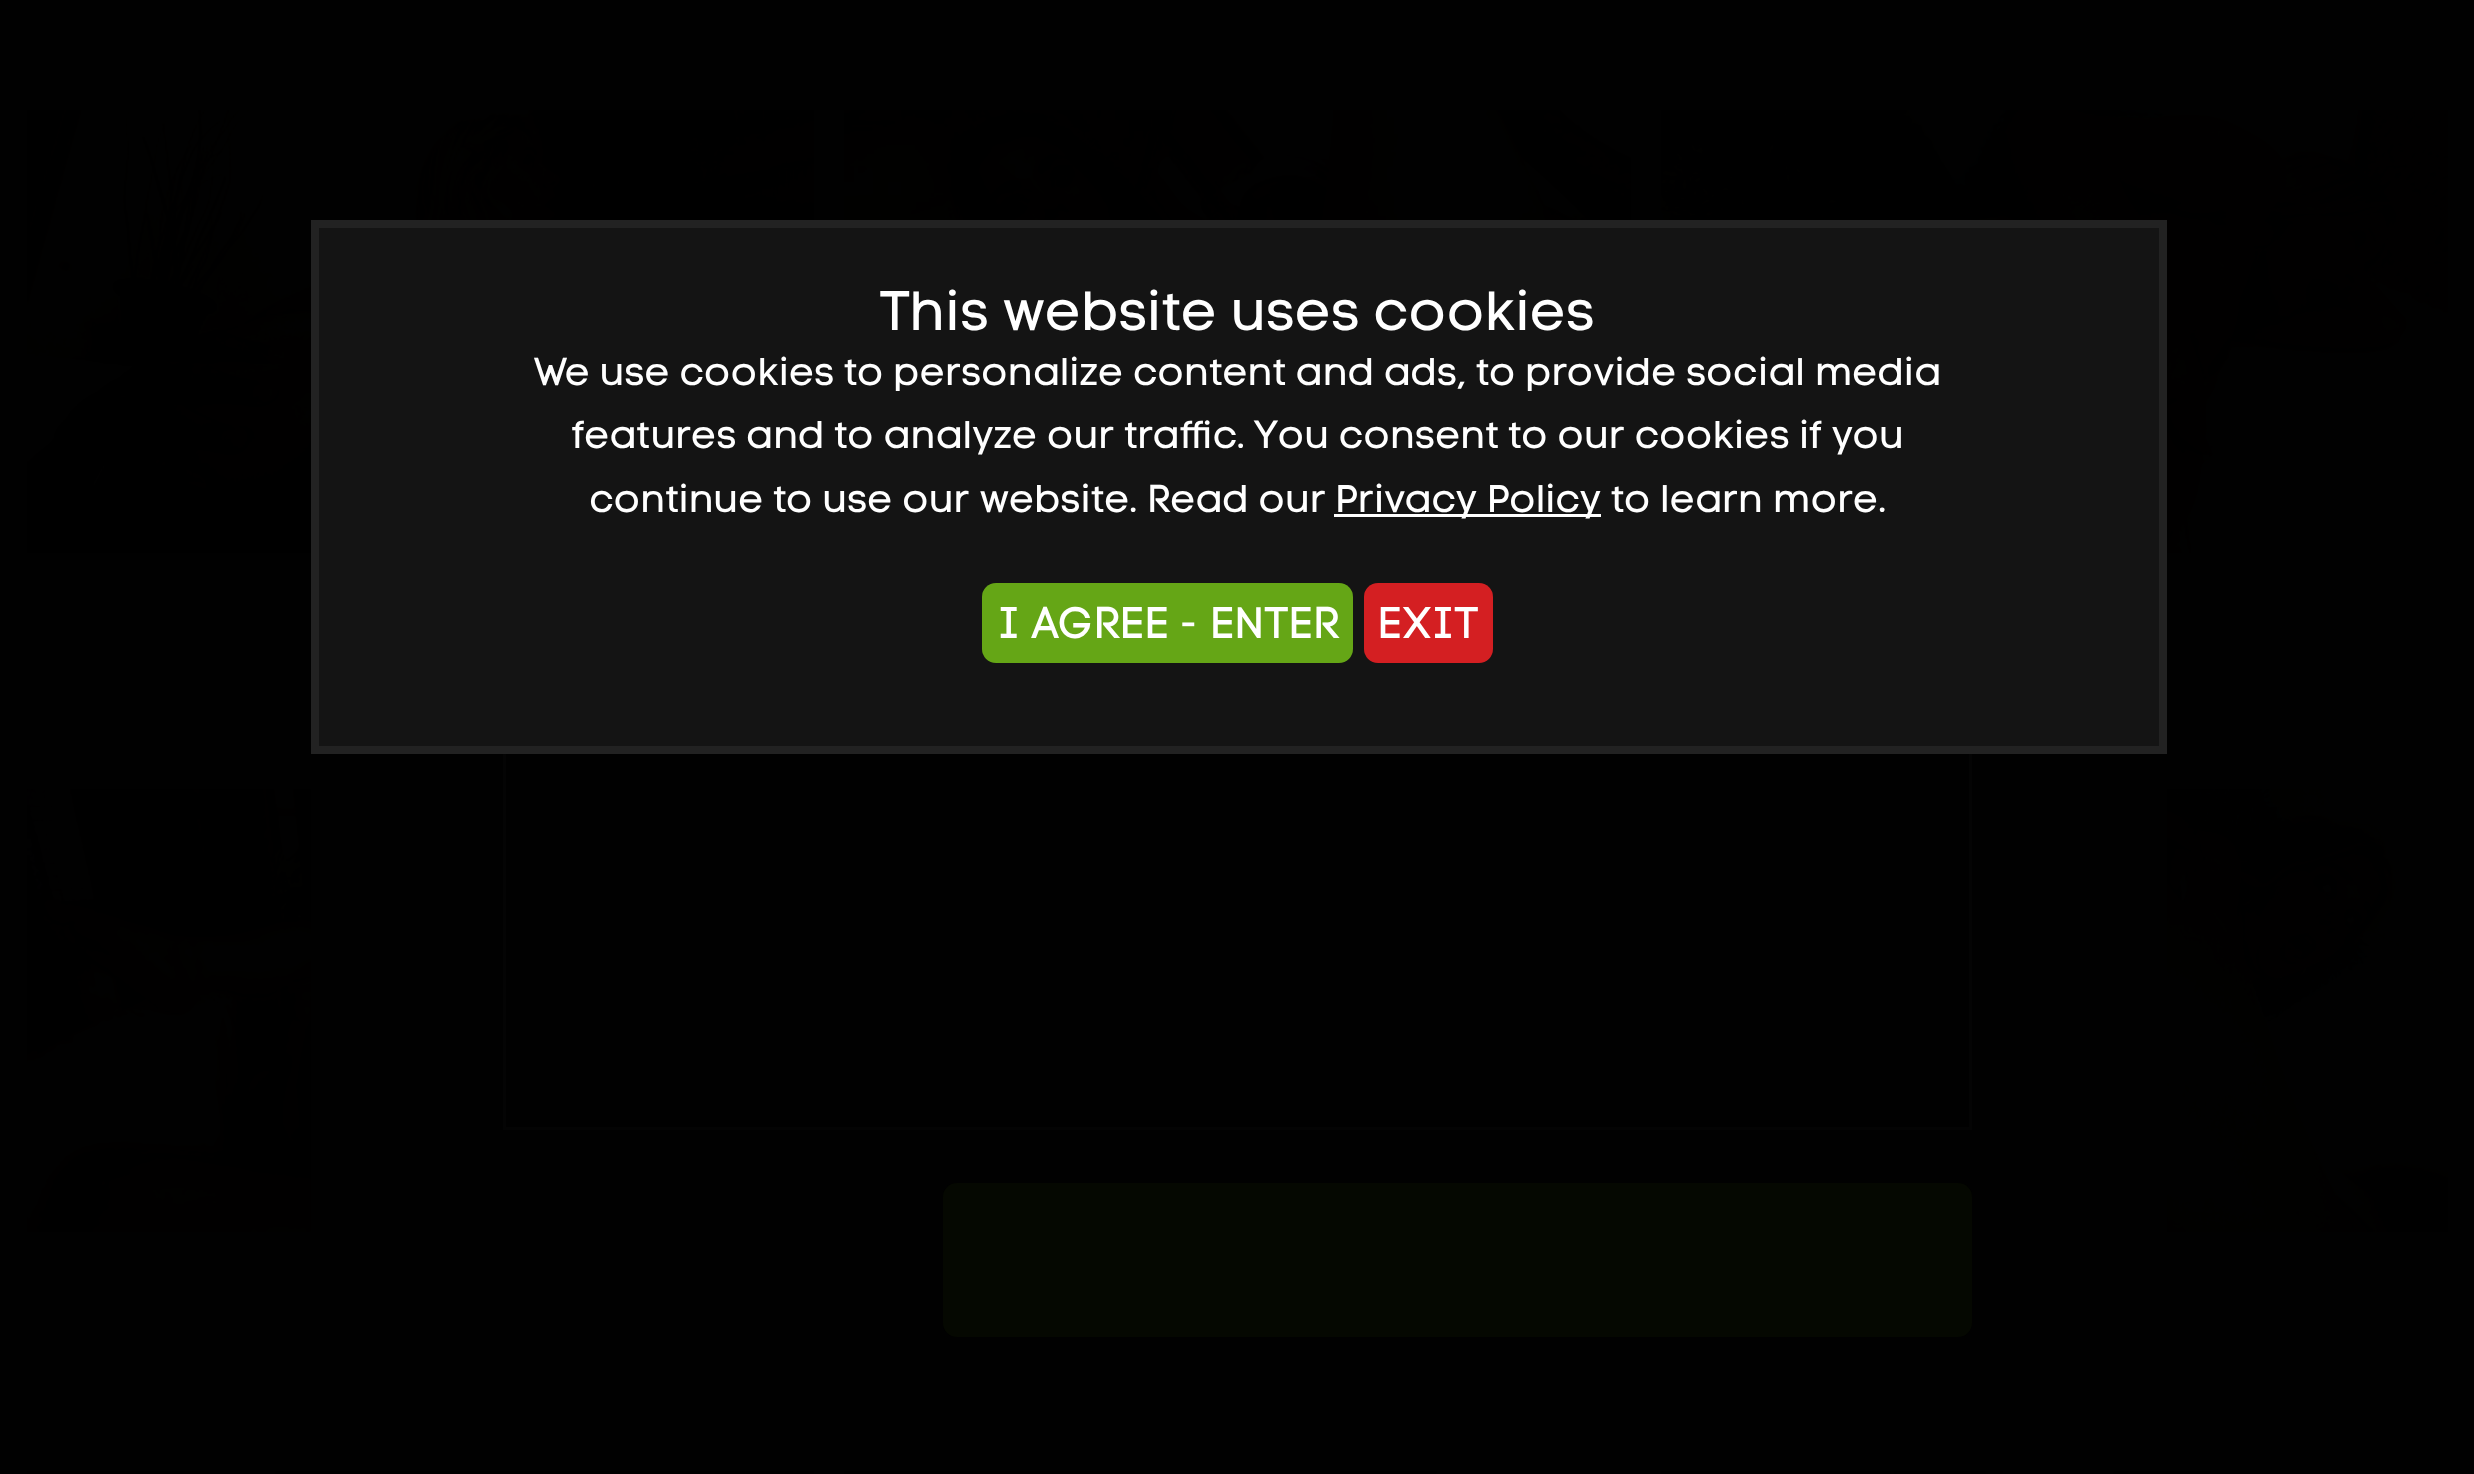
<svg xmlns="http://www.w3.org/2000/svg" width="2474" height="1474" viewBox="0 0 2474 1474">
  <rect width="100%" height="100%" fill="rgb(1,1,1)"/>
  <image x="27" y="110" width="787" height="443" href="pic1.png"/>
  <image x="844" y="110" width="787" height="110" href="pic2.png"/>
  <image x="1661" y="110" width="787" height="443" href="pic3.png"/>
  <image x="27" y="789" width="284" height="443" href="pic4.png"/>
  <image x="2167" y="789" width="281" height="443" href="pic5.png"/>
  <image x="27" y="1471" width="787" height="3" href="pic6.png"/>
  <image x="844" y="1471" width="787" height="3" href="pic7.png"/>
  <image x="1661" y="1471" width="786" height="3" href="pic8.png"/>
  <rect x="504.5" y="471.5" width="1466" height="657" fill="none" stroke="rgb(4,4,4)" stroke-width="3"/>
  <rect x="315" y="224" width="1848" height="526" fill="rgb(20,20,20)" stroke="rgb(34,34,34)" stroke-width="8"/>
  <text x="880" y="330" font-family="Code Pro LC" font-size="55" fill="rgb(255,255,255)">This website uses cookies</text>
  <g font-family="Code Pro LC" font-size="38.5" fill="rgb(255,255,255)">
    <text x="534" y="385">We use cookies to personalize content and ads, to provide social media</text>
    <text x="571" y="448">features and to analyze our traffic. You consent to our cookies if you</text>
    <text x="589" y="512">continue to use our website. Read our</text>
  </g>
  <rect x="1334" y="514" width="267" height="3" fill="rgb(255,255,255)"/>
  <text x="1335" y="512" font-family="Code Pro LC" font-size="38.5" fill="rgb(255,255,255)">Privacy Policy to learn more.</text>
  <rect x="982" y="583" width="371" height="80" rx="14" fill="rgb(101,166,22)"/>
  <text x="997" y="638" font-family="Code Pro LC" font-size="44" fill="rgb(255,255,255)">I AGREE - ENTER</text>
  <rect x="1364" y="583" width="129" height="80" rx="14" fill="rgb(212,31,34)"/>
  <text x="1377" y="638" font-family="Code Pro LC" font-size="44" fill="rgb(255,255,255)">EXIT</text>
  <rect x="943" y="1183" width="1029" height="154" rx="14" fill="rgb(5,8,1)"/>
</svg>
